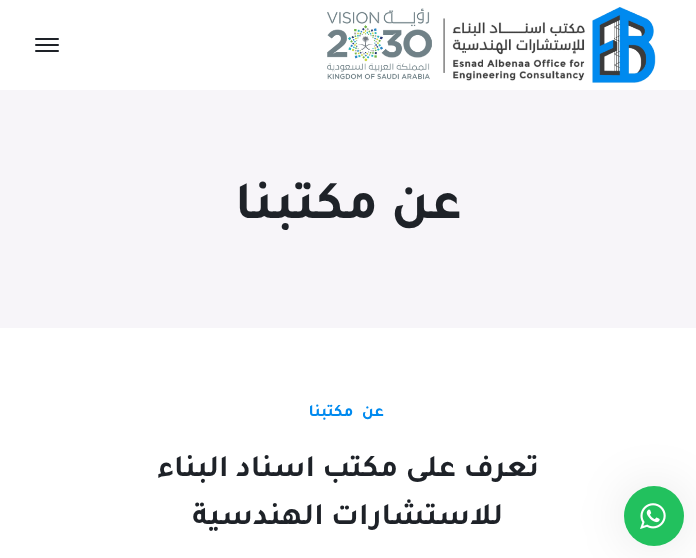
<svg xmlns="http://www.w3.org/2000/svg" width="696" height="558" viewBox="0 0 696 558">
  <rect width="100%" height="100%" fill="rgb(255,255,255)"/>
  <rect x="624" y="486" width="60" height="60" rx="30" fill="rgba(0,0,0,0.1)" filter="blur(25px)"/>
  <circle cx="654" cy="516" r="30" fill="rgb(34,193,94)"/>
  <image x="640" y="503" width="26" height="26" href="pic1.png"/>
  <image x="327" y="7" width="329" height="76" href="pic2.png"/>
  <rect x="35" y="38" width="24" height="2" rx="1" fill="rgb(30,34,40)"/>
  <rect x="35" y="44" width="24" height="2" rx="1" fill="rgb(30,34,40)"/>
  <rect x="35" y="50" width="24" height="2" rx="1" fill="rgb(30,34,40)"/>
  <rect x="0" y="90" width="696" height="238" fill="rgb(247,245,249)"/>
  <text x="462" y="218" font-family="Tajawal" font-size="54" font-weight="bold" direction="rtl" fill="rgb(30,34,40)">عن مكتبنا</text>
  <text x="384" y="416" word-spacing="4" font-family="Tajawal" font-size="17" font-weight="bold" letter-spacing="-0.5" direction="rtl" fill="rgb(0,138,239)">عن مكتبنا</text>
  <g font-family="Tajawal" font-size="31" font-weight="bold" direction="rtl" fill="rgb(30,34,40)">
    <text x="539" y="476">تعرف على مكتب اسناد البناء</text>
    <text x="503" y="524">للاستشارات الهندسية</text>
  </g>
</svg>
